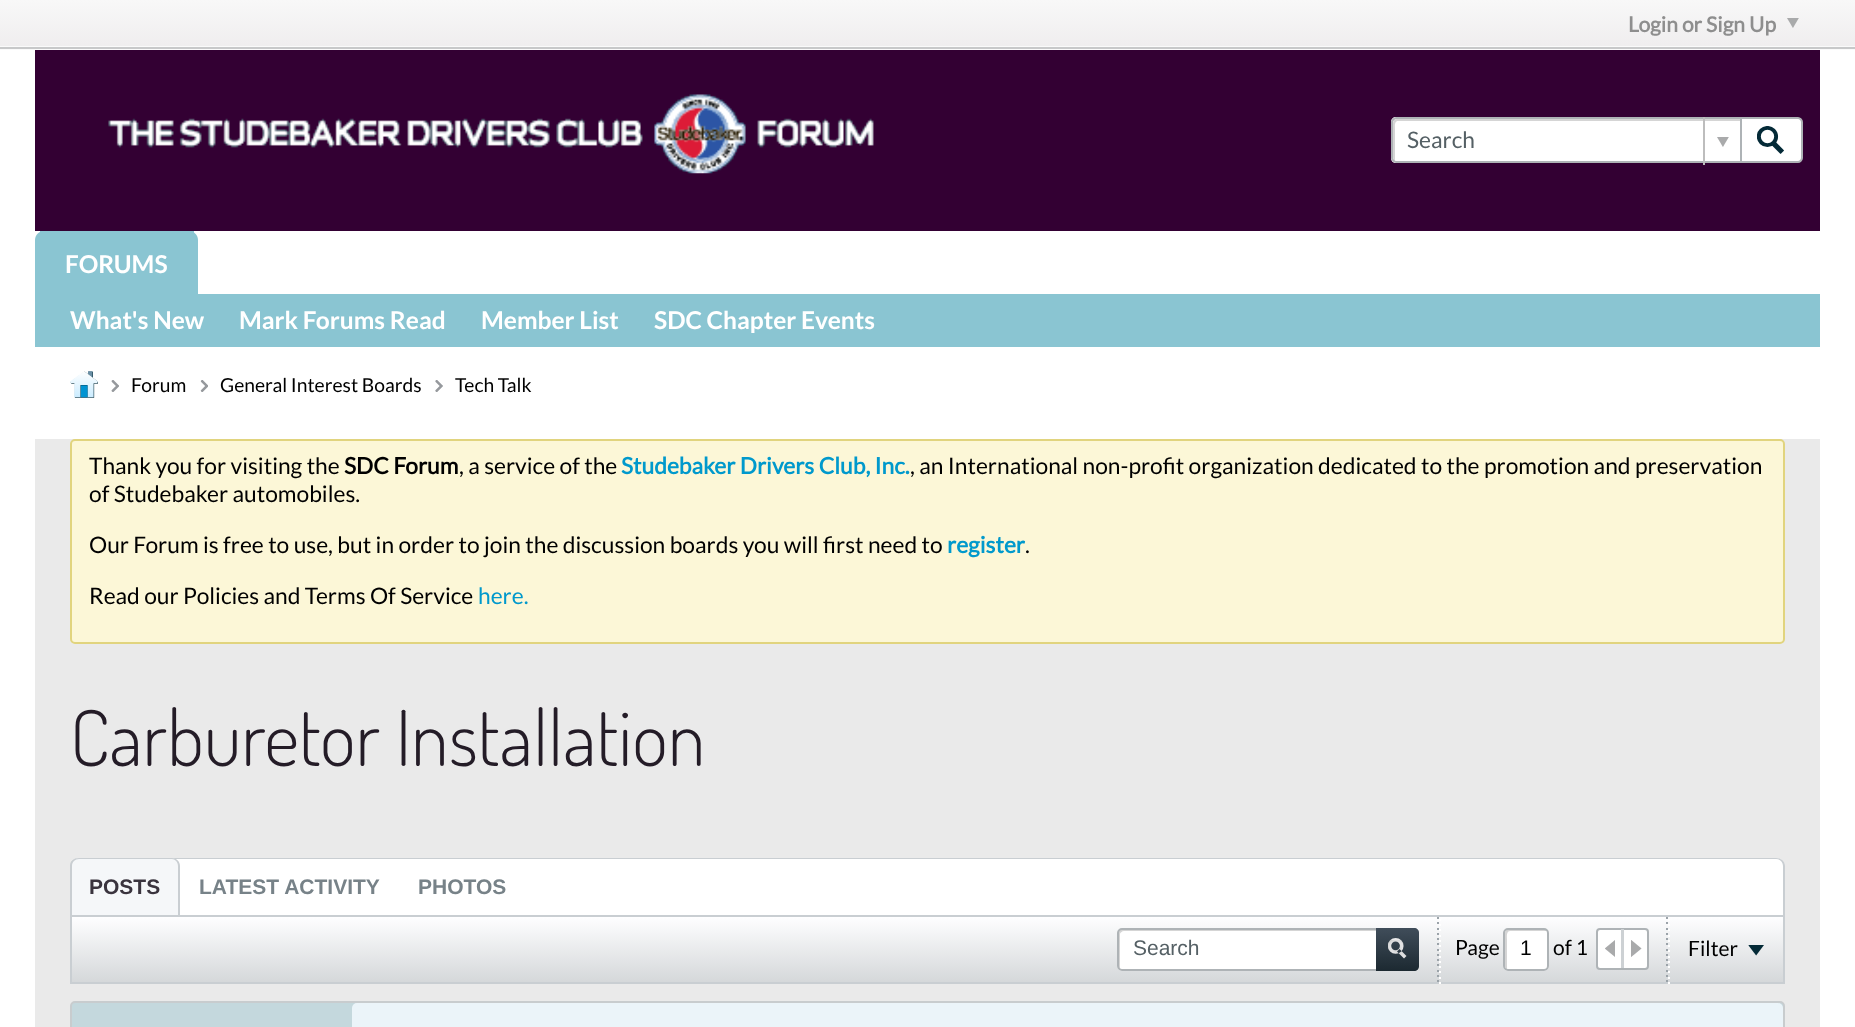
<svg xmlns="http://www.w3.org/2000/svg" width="1855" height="1027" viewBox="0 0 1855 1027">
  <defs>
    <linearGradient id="g1" gradientUnits="userSpaceOnUse" x1="928" y1="0" x2="928" y2="49"><stop offset="0" stop-color="rgb(248,248,248)"/><stop offset="1" stop-color="rgb(239,237,238)"/></linearGradient>
    <linearGradient id="g2" gradientUnits="userSpaceOnUse" x1="928" y1="917" x2="928" y2="982"><stop offset="0" stop-color="rgb(254,254,255)"/><stop offset="1" stop-color="rgb(213,216,218)"/></linearGradient>
    <linearGradient id="g3" gradientUnits="userSpaceOnUse" x1="1397" y1="928" x2="1397" y2="971"><stop offset="0" stop-color="rgb(64,77,90)"/><stop offset="1" stop-color="rgb(28,41,49)"/></linearGradient>
  </defs>
  <rect width="100%" height="100%" fill="rgb(255,255,255)"/>
  <rect x="0" y="0" width="1855" height="46" fill="url(#g1)"/>
  <text x="1628" y="32" font-family="'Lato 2'" font-size="21" font-weight="bold" fill="rgb(142,142,142)">Login or Sign Up</text>
  <image x="1787" y="18" width="12" height="10" href="pic1.png"/>
  <rect x="0" y="46" width="1855" height="4" fill="rgb(250,250,250)"/>
  <rect x="0" y="47" width="1855" height="2" fill="rgb(199,200,201)"/>
  <rect x="35" y="50" width="1785" height="181" fill="rgb(51,0,51)"/>
  <image x="108" y="94" width="766" height="80" href="pic2.png"/>
  <path d="M1396 117H1740V163H1396C1393 163 1391 161 1391 158V122C1391 119 1393 117 1396 117Z" fill="rgb(255,255,255)"/>
  <path d="M1398 121H1740V119H1397C1395 119 1393 121 1393 123V157C1393 159 1394 160 1395 161V130C1395 127 1394 121 1398 121Z" fill="rgb(213,213,213)"/>
  <path d="M1396 117H1740V163H1396C1394 163 1391 160 1391 158V122C1391 120 1394 117 1396 117ZM1396 119H1740V161H1396C1395 161 1393 159 1393 158V122C1393 121 1395 119 1396 119Z" fill="rgb(174,179,182)" fill-rule="evenodd"/>
  <text x="1407" y="148" font-family="Lato" font-size="22.75" fill="rgb(85,96,101)">Search</text>
  <rect x="1703" y="117" width="2" height="48" fill="rgb(189,189,189)"/>
  <image x="1717" y="137" width="12" height="10" href="pic3.png"/>
  <path d="M1741 118H1798C1800 118 1802 120 1802 122V158C1802 160 1800 162 1798 162H1741Z" fill="rgb(255,255,255)" stroke="rgb(174,179,182)" stroke-width="2"/>
  <image x="1757" y="126" width="27" height="28" href="pic4.png"/>
  <path d="M44 231H189C194 231 198 235 198 240V294H35V240C35 235 39 231 44 231Z" fill="rgb(138,197,210)"/>
  <rect x="40" y="231" width="154" height="2" fill="rgb(138,197,210)"/>
  <text x="65" y="273" font-family="Lato" font-size="24.5" font-weight="bold" fill="rgb(255,255,255)">FORUMS</text>
  <rect x="35" y="294" width="1785" height="53" fill="rgb(138,197,210)"/>
  <g font-family="Lato" font-size="24.5" font-weight="bold" fill="rgb(255,255,255)">
    <text x="70" y="329">What's New</text>
    <text x="239" y="329">Mark Forums Read</text>
    <text x="481" y="329">Member List</text>
    <text x="654" y="329">SDC Chapter Events</text>
  </g>
  <image x="70" y="371" width="28" height="27" href="pic5.png"/>
  <image x="111" y="380" width="8" height="12" href="pic6.png"/>
  <text x="131" y="392" font-family="Lato" font-size="19.25" fill="rgb(0,0,0)">Forum</text>
  <image x="200" y="380" width="8" height="12" href="pic7.png"/>
  <text x="220" y="392" font-family="Lato" font-size="19.25" fill="rgb(0,0,0)">General Interest Boards</text>
  <image x="435" y="380" width="8" height="12" href="pic8.png"/>
  <text x="455" y="392" font-family="Lato" font-size="19.25" fill="rgb(0,0,0)">Tech Talk</text>
  <rect x="35" y="439" width="1785" height="588" fill="rgb(234,234,234)"/>
  <rect x="71" y="440" width="1713" height="203" rx="4" fill="rgb(252,247,215)" stroke="rgb(225,212,126)" stroke-width="2"/>
  <text x="89" y="474" font-family="Lato" font-size="22.75" fill="rgb(0,0,0)">Thank you for visiting the</text>
  <text x="344" y="474" font-family="'Lato 2'" font-size="22.75" font-weight="bold" fill="rgb(0,0,0)">SDC Forum</text>
  <text x="459" y="474" font-family="Lato" font-size="22.75" fill="rgb(0,0,0)">, a service of the</text>
  <text x="621" y="474" font-family="'Lato 2'" font-size="22.75" font-weight="bold" fill="rgb(0,153,204)">Studebaker Drivers Club, Inc.</text>
  <g font-family="Lato" font-size="22.75" fill="rgb(0,0,0)">
    <text x="910" y="474">, an International non-profit organization dedicated to the promotion and preservation</text>
    <text x="89" y="502">of Studebaker automobiles.</text>
    <text x="89" y="553">Our Forum is free to use, but in order to join the discussion boards you will first need to</text>
  </g>
  <text x="947" y="553" font-family="'Lato 2'" font-size="22.75" font-weight="bold" fill="rgb(0,153,204)">register</text>
  <g font-family="Lato" font-size="22.75" fill="rgb(0,0,0)">
    <text x="1025" y="553">.</text>
    <text x="89" y="604">Read our Policies and Terms Of Service</text>
  </g>
  <text x="478" y="604" font-family="Lato" font-size="22.75" fill="rgb(0,153,204)">here.</text>
  <text x="70" y="766" font-family="Dosis" font-size="77" font-weight="300" fill="rgb(36,28,39)">Carburetor Installation</text>
  <path d="M79 858H1776C1781 858 1785 862 1785 867V915H70V867C70 862 74 858 79 858Z" fill="rgb(255,255,255)"/>
  <path d="M79 858H1776C1781 858 1785 861 1785 866V915H70V866C70 861 74 858 79 858ZM79 859H1776C1780 859 1783 862 1783 866V915H72V866C72 862 75 859 79 859Z" fill="rgb(201,206,210)" fill-rule="evenodd"/>
  <path d="M77 859H522C525 859 527 861 527 864V915H72V864C72 861 74 859 77 859Z" fill="rgb(255,255,255)"/>
  <path d="M79 858H171C176 858 180 862 180 867V915H70V867C70 862 74 858 79 858Z" fill="rgb(245,247,249)"/>
  <path d="M79 858H172C176 858 180 861 180 866V915H70V866C70 861 74 858 79 858ZM79 859H172C175 859 178 862 178 866V915H72V866C72 862 75 859 79 859Z" fill="rgb(201,206,210)" fill-rule="evenodd"/>
  <text x="89" y="894" font-family="Liberation Sans" font-size="21" font-weight="bold" fill="rgb(58,52,62)">POSTS</text>
  <g font-family="Liberation Sans" font-size="21" font-weight="bold" fill="rgb(119,130,136)">
    <text x="199" y="894">LATEST ACTIVITY</text>
    <text x="418" y="894">PHOTOS</text>
  </g>
  <rect x="72" y="917" width="1711" height="65" fill="url(#g2)"/>
  <rect x="71" y="916" width="1713" height="67" fill="none" stroke="rgb(201,206,210)" stroke-width="2"/>
  <rect x="1117" y="928" width="302" height="43" rx="5" fill="rgb(255,255,255)"/>
  <path d="M1124 931H1416L1418 932C1417 930 1416 929 1414 929H1122C1120 929 1118 931 1118 933V966C1118 968 1119 969 1121 970L1120 968V934C1120 933 1122 931 1124 931Z" fill="rgb(213,213,213)"/>
  <rect x="1118" y="929" width="300" height="41" rx="4" fill="none" stroke="rgb(174,179,182)" stroke-width="2"/>
  <text x="1133" y="955" font-family="Liberation Sans" font-size="21" fill="rgb(85,96,101)">Search</text>
  <path d="M1376 928H1414C1417 928 1419 930 1419 933V966C1419 969 1417 971 1414 971H1376Z" fill="url(#g3)"/>
  <image x="1388" y="938" width="19" height="21" href="pic9.png"/>
  <rect x="1437" y="917" width="2" height="2" fill="rgb(155,163,169)"/>
  <rect x="1437" y="922" width="2" height="2" fill="rgb(155,163,169)"/>
  <rect x="1437" y="928" width="2" height="2" fill="rgb(155,163,169)"/>
  <rect x="1437" y="933" width="2" height="2" fill="rgb(155,163,169)"/>
  <rect x="1437" y="938" width="2" height="2" fill="rgb(155,163,169)"/>
  <rect x="1437" y="943" width="2" height="2" fill="rgb(155,163,169)"/>
  <rect x="1437" y="949" width="2" height="2" fill="rgb(155,163,169)"/>
  <rect x="1437" y="954" width="2" height="2" fill="rgb(155,163,169)"/>
  <rect x="1437" y="959" width="2" height="2" fill="rgb(155,163,169)"/>
  <rect x="1437" y="964" width="2" height="2" fill="rgb(155,163,169)"/>
  <rect x="1437" y="970" width="2" height="2" fill="rgb(155,163,169)"/>
  <rect x="1437" y="975" width="2" height="2" fill="rgb(155,163,169)"/>
  <rect x="1437" y="980" width="2" height="2" fill="rgb(155,163,169)"/>
  <rect x="1439" y="919" width="2" height="2" fill="rgb(255,255,255)"/>
  <rect x="1439" y="924" width="2" height="2" fill="rgb(255,255,255)"/>
  <rect x="1439" y="929" width="2" height="2" fill="rgb(255,255,255)"/>
  <rect x="1439" y="935" width="2" height="2" fill="rgb(255,255,255)"/>
  <rect x="1439" y="940" width="2" height="2" fill="rgb(255,255,255)"/>
  <rect x="1439" y="945" width="2" height="2" fill="rgb(255,255,255)"/>
  <rect x="1439" y="950" width="2" height="2" fill="rgb(255,255,255)"/>
  <rect x="1439" y="956" width="2" height="2" fill="rgb(255,255,255)"/>
  <rect x="1439" y="961" width="2" height="2" fill="rgb(255,255,255)"/>
  <rect x="1439" y="966" width="2" height="2" fill="rgb(255,255,255)"/>
  <rect x="1439" y="971" width="2" height="2" fill="rgb(255,255,255)"/>
  <rect x="1439" y="977" width="2" height="2" fill="rgb(255,255,255)"/>
  <rect x="1439" y="982" width="2" height="2" fill="rgb(255,255,255)"/>
  <text x="1455" y="955" font-family="Lato" font-size="21" fill="rgb(0,0,0)">Page</text>
  <rect x="1503" y="928" width="46" height="43" rx="5" fill="rgb(255,255,255)"/>
  <path d="M1510 931H1545H1547C1546 930 1545 929 1543 929H1509C1507 929 1505 931 1505 933V966C1505 968 1506 969 1507 970V940C1507 938 1506 931 1510 931Z" fill="rgb(213,213,213)"/>
  <rect x="1504" y="929" width="44" height="41" rx="4" fill="none" stroke="rgb(174,179,182)" stroke-width="2"/>
  <text x="1520" y="955" font-family="Liberation Sans" font-size="21" fill="rgb(0,0,0)">1</text>
  <text x="1553" y="955" font-family="Lato" font-size="21" fill="rgb(0,0,0)">of 1</text>
  <rect x="1597" y="929" width="51" height="40" rx="3" fill="rgb(255,255,255)" stroke="rgb(174,179,182)" stroke-width="2"/>
  <rect x="1621" y="929" width="3" height="39" fill="rgb(205,209,212)"/>
  <image x="1605" y="940" width="10" height="17" href="pic10.png"/>
  <image x="1631" y="940" width="11" height="17" href="pic11.png"/>
  <rect x="1666" y="917" width="2" height="2" fill="rgb(155,163,169)"/>
  <rect x="1666" y="922" width="2" height="2" fill="rgb(155,163,169)"/>
  <rect x="1666" y="928" width="2" height="2" fill="rgb(155,163,169)"/>
  <rect x="1666" y="933" width="2" height="2" fill="rgb(155,163,169)"/>
  <rect x="1666" y="938" width="2" height="2" fill="rgb(155,163,169)"/>
  <rect x="1666" y="943" width="2" height="2" fill="rgb(155,163,169)"/>
  <rect x="1666" y="949" width="2" height="2" fill="rgb(155,163,169)"/>
  <rect x="1666" y="954" width="2" height="2" fill="rgb(155,163,169)"/>
  <rect x="1666" y="959" width="2" height="2" fill="rgb(155,163,169)"/>
  <rect x="1666" y="964" width="2" height="2" fill="rgb(155,163,169)"/>
  <rect x="1666" y="970" width="2" height="2" fill="rgb(155,163,169)"/>
  <rect x="1666" y="975" width="2" height="2" fill="rgb(155,163,169)"/>
  <rect x="1666" y="980" width="2" height="2" fill="rgb(155,163,169)"/>
  <rect x="1668" y="919" width="2" height="2" fill="rgb(255,255,255)"/>
  <rect x="1668" y="924" width="2" height="2" fill="rgb(255,255,255)"/>
  <rect x="1668" y="929" width="2" height="2" fill="rgb(255,255,255)"/>
  <rect x="1668" y="935" width="2" height="2" fill="rgb(255,255,255)"/>
  <rect x="1668" y="940" width="2" height="2" fill="rgb(255,255,255)"/>
  <rect x="1668" y="945" width="2" height="2" fill="rgb(255,255,255)"/>
  <rect x="1668" y="950" width="2" height="2" fill="rgb(255,255,255)"/>
  <rect x="1668" y="956" width="2" height="2" fill="rgb(255,255,255)"/>
  <rect x="1668" y="961" width="2" height="2" fill="rgb(255,255,255)"/>
  <rect x="1668" y="966" width="2" height="2" fill="rgb(255,255,255)"/>
  <rect x="1668" y="971" width="2" height="2" fill="rgb(255,255,255)"/>
  <rect x="1668" y="977" width="2" height="2" fill="rgb(255,255,255)"/>
  <rect x="1668" y="982" width="2" height="2" fill="rgb(255,255,255)"/>
  <text x="1688" y="956" font-family="Lato" font-size="21" fill="rgb(0,0,0)">Filter</text>
  <image x="1748" y="945" width="16" height="11" href="pic12.png"/>
  <rect x="71" y="1002" width="1713" height="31" rx="4" fill="rgb(196,216,221)" stroke="rgb(200,204,206)" stroke-width="2"/>
  <rect x="352" y="1003" width="1431" height="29" rx="5" fill="rgb(235,244,249)"/>
</svg>
